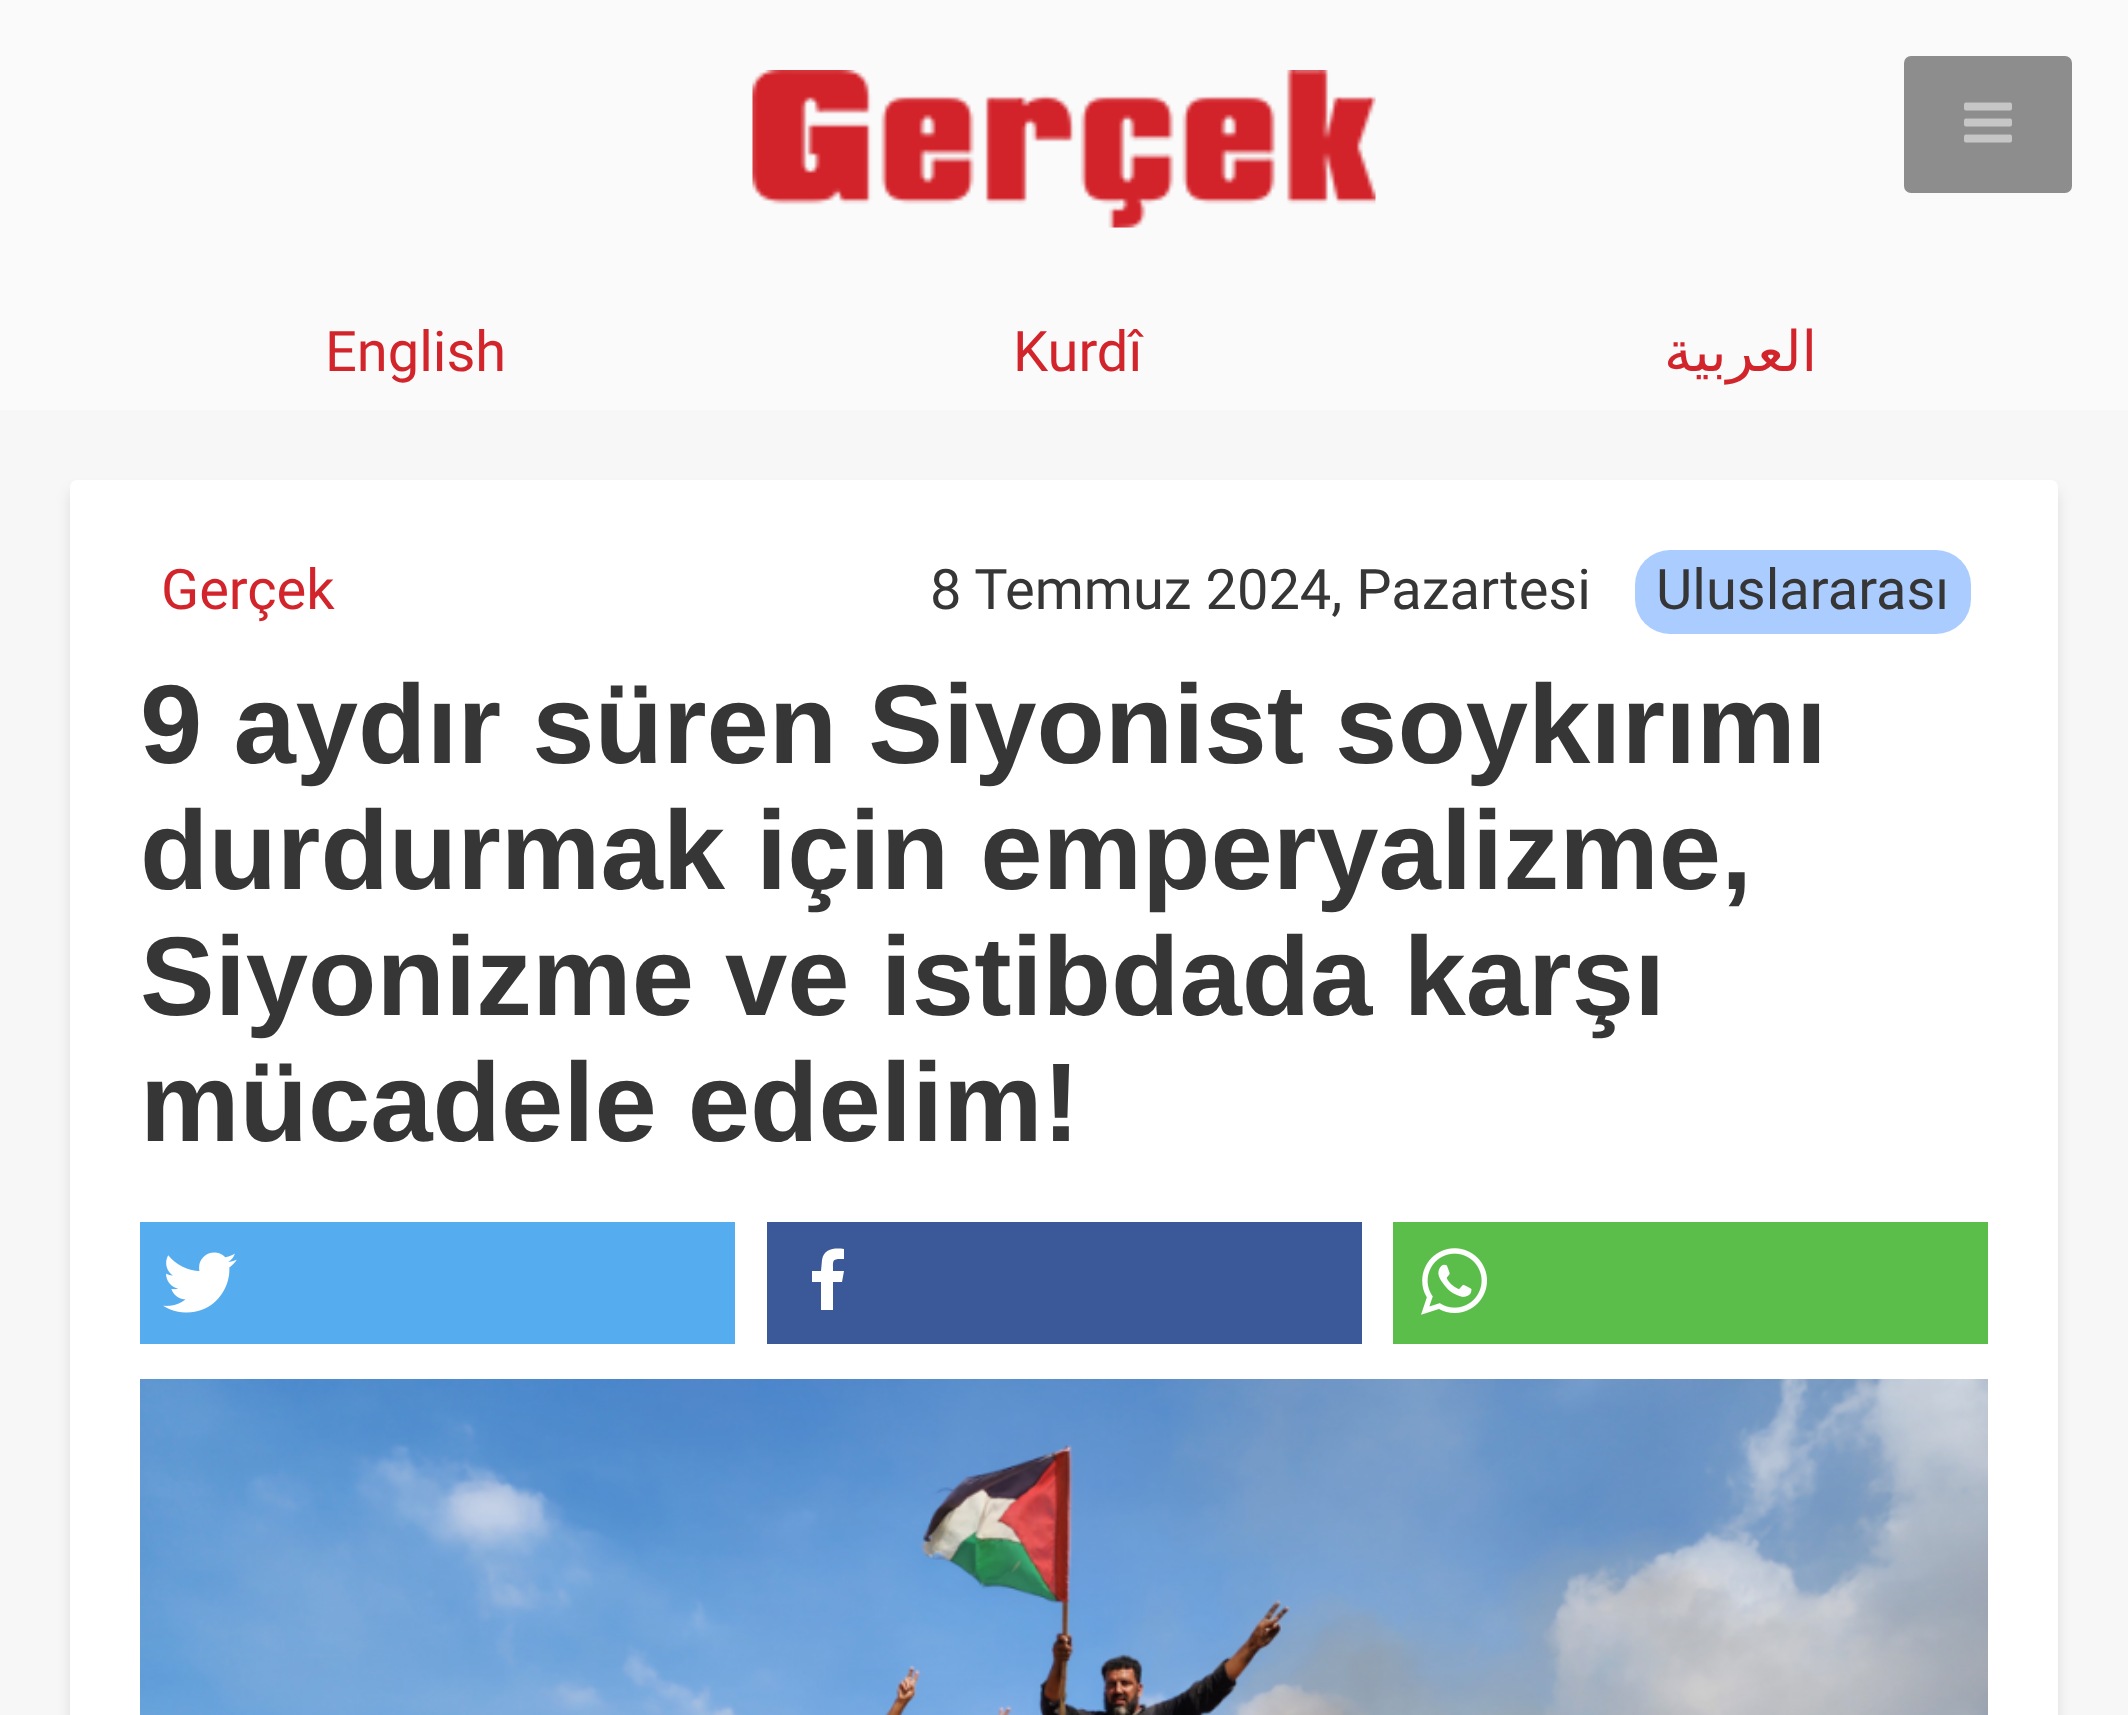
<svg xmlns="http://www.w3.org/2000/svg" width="2128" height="1715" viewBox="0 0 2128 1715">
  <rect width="100%" height="100%" fill="rgb(247,247,247)"/>
  <rect x="0" y="0" width="2128" height="410" fill="rgb(250,250,250)"/>
  <rect x="1904" y="56" width="168" height="137" rx="7" fill="rgb(141,141,141)"/>
  <image x="1964" y="102" width="48" height="41" href="pic1.png"/>
  <image x="752" y="70" width="624" height="158" href="pic2.png"/>
  <g font-family="Roboto" font-size="56" fill="rgb(210,36,43)">
    <text x="325" y="371">English</text>
    <text x="1013" y="371">Kurdî</text>
  </g>
  <text x="1817" y="371" font-family="DejaVu Sans" font-size="56" direction="rtl" fill="rgb(210,36,43)">العربية</text>
  <rect x="70" y="490" width="1988" height="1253" rx="7" fill="rgba(0,0,0,0.1)" filter="blur(7px)"/>
  <rect x="70" y="480" width="1988" height="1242" rx="7" fill="rgb(255,255,255)"/>
  <text x="161" y="609" font-family="Roboto" font-size="56" fill="rgb(210,36,43)">Gerçek</text>
  <text x="930" y="609" font-family="Roboto" font-size="56" fill="rgb(54,54,54)">8 Temmuz 2024, Pazartesi</text>
  <rect x="1635" y="550" width="336" height="84" rx="35" fill="rgb(170,204,255)"/>
  <text x="1656" y="609" font-family="Roboto" font-size="56" fill="rgb(54,54,54)">Uluslararası</text>
  <g font-family="Liberation Sans" font-size="112" font-weight="bold" fill="rgb(54,54,54)">
    <text>
      <tspan x="140" y="763">9 aydır süren Siyonist soykırımı</tspan>
      <tspan x="140" y="889">durdurmak için emperyalizme,</tspan>
      <tspan x="140" y="1015">Siyonizme ve istibdada karşı</tspan>
      <tspan x="140" y="1141">mücadele edelim!</tspan>
    </text>
  </g>
  <rect x="140" y="1222" width="595" height="122" fill="rgb(85,172,238)"/>
  <image x="163" y="1252" width="74" height="61" href="pic3.png"/>
  <rect x="767" y="1222" width="595" height="122" fill="rgb(59,89,152)"/>
  <path d="M844 1249V1259C832 1259 833 1259 833 1271H844L842 1282H833V1310H821V1282H812V1271H821L822 1260C824 1248 835 1248 844 1249Z" fill="rgb(255,255,255)"/>
  <rect x="1393" y="1222" width="595" height="122" fill="rgb(92,190,74)"/>
  <image x="1421" y="1248" width="66" height="67" href="pic4.png"/>
  <image x="140" y="1379" width="1848" height="336" href="pic5.png"/>
</svg>
